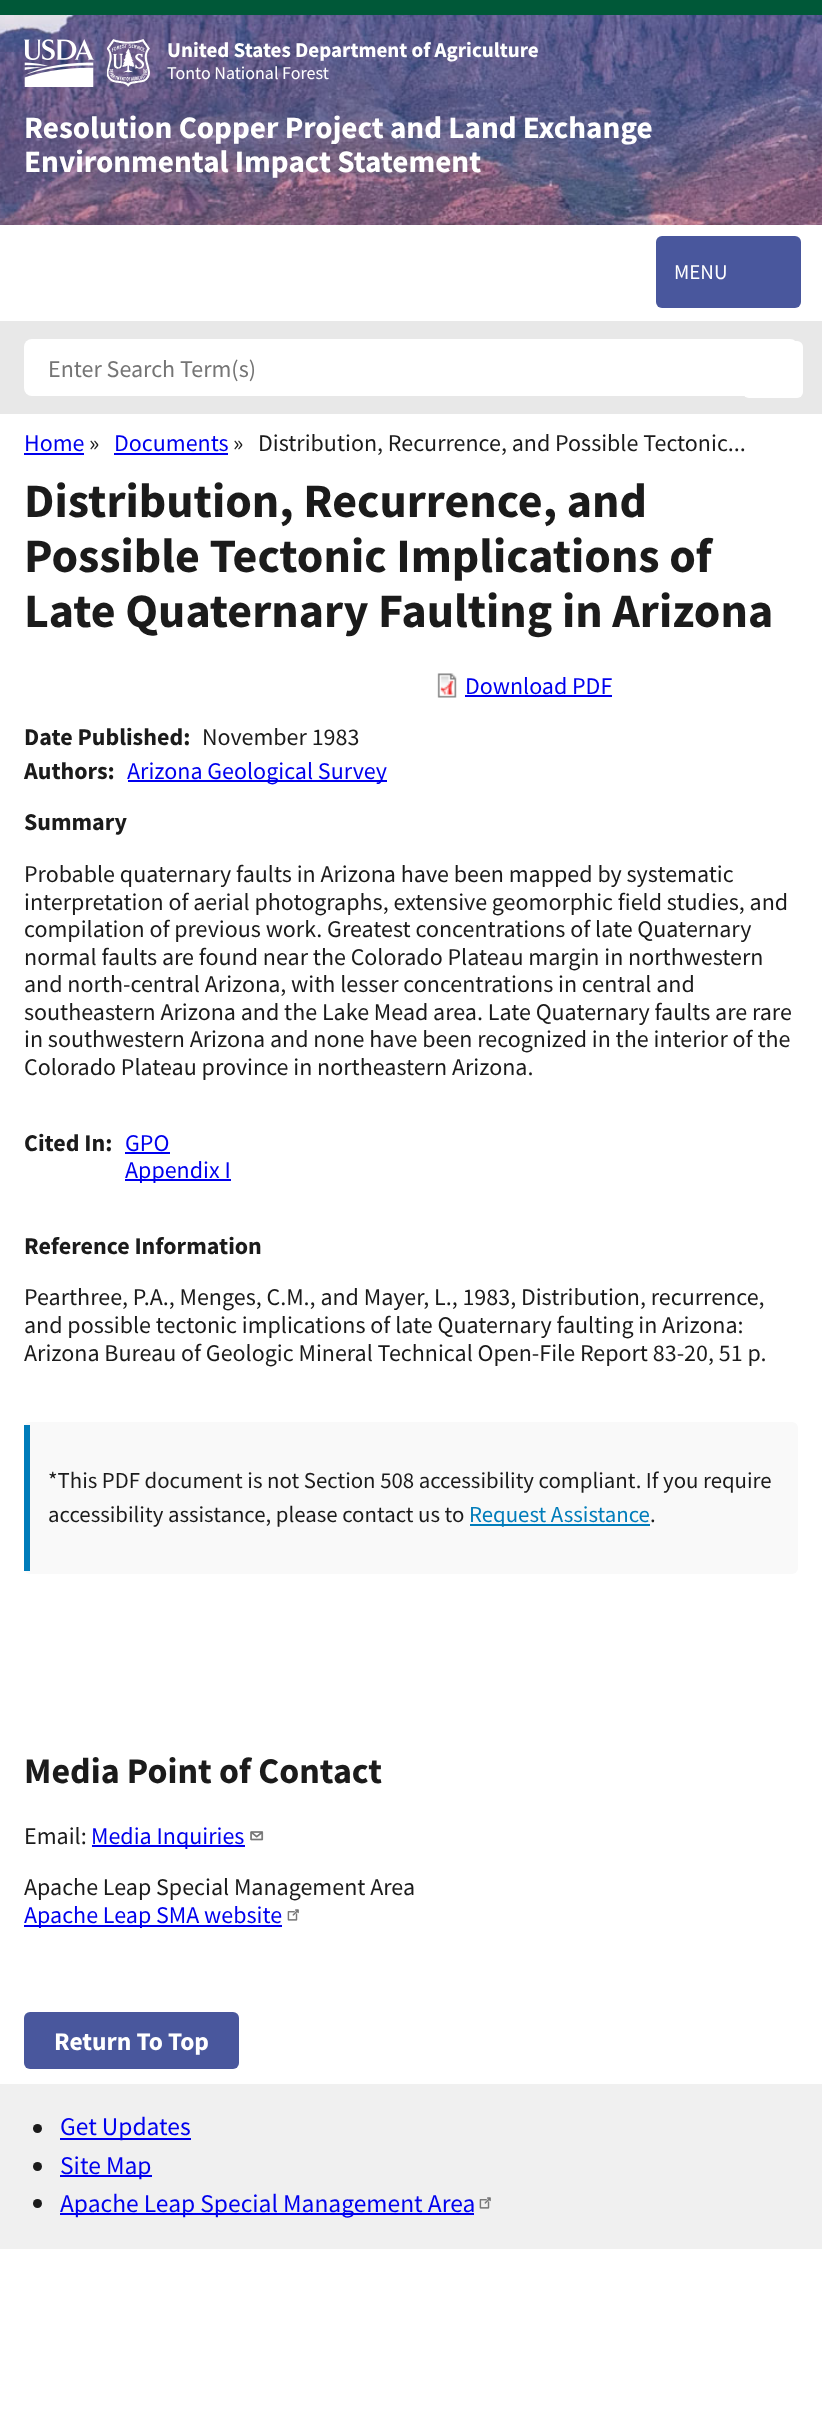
<svg xmlns="http://www.w3.org/2000/svg" width="822" height="2434" viewBox="0 0 822 2434">
  <rect width="100%" height="100%" fill="rgb(255,255,255)"/>
  <image x="0" y="15" width="822" height="210" href="pic1.png"/>
  <rect x="0" y="0" width="822" height="15" fill="rgb(0,88,56)"/>
  <image x="24" y="39" width="70" height="48" href="pic2.png"/>
  <image x="107" y="39" width="43" height="48" href="pic3.png"/>
  <text x="167" y="57" font-family="Source Sans Pro" font-size="21" font-weight="bold" fill="rgb(255,255,255)">United States Department of Agriculture</text>
  <text x="167" y="79" font-family="Source Sans Pro" font-size="18" fill="rgb(255,255,255)">Tonto National Forest</text>
  <g font-family="Source Sans Pro" font-size="31.2" font-weight="bold" fill="rgb(255,255,255)">
    <text>
      <tspan x="24" y="138">Resolution Copper Project and Land Exchange</tspan>
      <tspan x="24" y="172">Environmental Impact Statement</tspan>
    </text>
  </g>
  <rect x="656" y="236" width="145" height="72" rx="6" fill="rgb(73,87,157)"/>
  <text x="674" y="279" font-family="Source Sans Pro" font-size="21" fill="rgb(255,255,255)">MENU</text>
  <rect x="0" y="321" width="822" height="93" fill="rgb(232,232,232)"/>
  <rect x="24" y="339" width="774" height="57" rx="8" fill="rgb(255,255,255)"/>
  <text x="48" y="377" font-family="Source Sans Pro" font-size="24" fill="rgb(117,117,117)">Enter Search Term(s)</text>
  <rect x="743" y="341" width="60" height="57" rx="6" fill="rgb(255,255,255)"/>
  <text x="24" y="451" font-family="Source Sans Pro" font-size="24" fill="rgb(0,0,238)">Home</text>
  <rect x="24" y="453" width="60" height="2" fill="rgb(0,0,238)"/>
  <text x="89" y="451" font-family="Source Sans Pro" font-size="24" fill="rgb(27,27,27)">»</text>
  <text x="114" y="451" font-family="Source Sans Pro" font-size="24" fill="rgb(0,0,238)">Documents</text>
  <rect x="114" y="453" width="114" height="2" fill="rgb(0,0,238)"/>
  <g font-family="Source Sans Pro" font-size="24" fill="rgb(27,27,27)">
    <text x="233" y="451">»</text>
    <text x="258" y="451">Distribution, Recurrence, and Possible Tectonic...</text>
  </g>
  <g font-family="Source Sans Pro" font-size="48" font-weight="bold" fill="rgb(27,27,27)">
    <text>
      <tspan x="24" y="517">Distribution, Recurrence, and</tspan>
      <tspan x="24" y="572">Possible Tectonic Implications of</tspan>
      <tspan x="24" y="627">Late Quaternary Faulting in Arizona</tspan>
    </text>
  </g>
  <image x="437" y="673" width="20" height="25" href="pic4.png"/>
  <text x="465" y="694" font-family="Source Sans Pro" font-size="24" fill="rgb(0,0,238)">Download PDF</text>
  <rect x="465" y="695" width="147" height="2" fill="rgb(0,0,238)"/>
  <text x="24" y="745" font-family="Source Sans Pro" font-size="24" font-weight="bold" fill="rgb(27,27,27)">Date Published:</text>
  <text x="202" y="745" font-family="Source Sans Pro" font-size="24" fill="rgb(27,27,27)">November 1983</text>
  <text x="24" y="779" font-family="Source Sans Pro" font-size="24" font-weight="bold" fill="rgb(27,27,27)">Authors:</text>
  <rect x="128" y="780" width="259" height="2" fill="rgb(0,0,238)"/>
  <text x="127" y="779" font-family="Source Sans Pro" font-size="24" fill="rgb(0,0,238)">Arizona Geological Survey</text>
  <text x="24" y="830" font-family="Source Sans Pro" font-size="24" font-weight="bold" fill="rgb(27,27,27)">Summary</text>
  <g font-family="Source Sans Pro" font-size="24" fill="rgb(27,27,27)">
    <text>
      <tspan x="24" y="882">Probable quaternary faults in Arizona have been mapped by systematic</tspan>
      <tspan x="24" y="910">interpretation of aerial photographs, extensive geomorphic field studies, and</tspan>
      <tspan x="24" y="937">compilation of previous work. Greatest concentrations of late Quaternary</tspan>
      <tspan x="24" y="965">normal faults are found near the Colorado Plateau margin in northwestern</tspan>
      <tspan x="24" y="992">and north-central Arizona, with lesser concentrations in central and</tspan>
      <tspan x="24" y="1020">southeastern Arizona and the Lake Mead area. Late Quaternary faults are rare</tspan>
      <tspan x="24" y="1047">in southwestern Arizona and none have been recognized in the interior of the</tspan>
      <tspan x="24" y="1075">Colorado Plateau province in northeastern Arizona.</tspan>
    </text>
  </g>
  <text x="24" y="1151" font-family="Source Sans Pro" font-size="24" font-weight="bold" fill="rgb(27,27,27)">Cited In:</text>
  <text x="125" y="1151" font-family="Source Sans Pro" font-size="24" fill="rgb(0,0,238)">GPO</text>
  <rect x="125" y="1152" width="45" height="2" fill="rgb(0,0,238)"/>
  <rect x="125" y="1179" width="106" height="2" fill="rgb(0,0,238)"/>
  <text x="125" y="1178" font-family="Source Sans Pro" font-size="24" fill="rgb(0,0,238)">Appendix I</text>
  <text x="24" y="1254" font-family="Source Sans Pro" font-size="24" font-weight="bold" fill="rgb(27,27,27)">Reference Information</text>
  <g font-family="Source Sans Pro" font-size="24" fill="rgb(27,27,27)">
    <text>
      <tspan x="24" y="1305">Pearthree, P.A., Menges, C.M., and Mayer, L., 1983, Distribution, recurrence,</tspan>
      <tspan x="24" y="1333">and possible tectonic implications of late Quaternary faulting in Arizona:</tspan>
      <tspan x="24" y="1361">Arizona Bureau of Geologic Mineral Technical Open-File Report 83-20, 51 p.</tspan>
    </text>
  </g>
  <rect x="24" y="1422" width="774" height="152" rx="6" fill="rgb(249,249,249)"/>
  <rect x="24" y="1425" width="6" height="146" fill="rgb(0,124,186)"/>
  <g font-family="Source Sans Pro" font-size="22.8" fill="rgb(27,27,27)">
    <text>
      <tspan x="48" y="1488">*This PDF document is not Section 508 accessibility compliant. If you require</tspan>
      <tspan x="48" y="1522">accessibility assistance, please contact us to</tspan>
    </text>
  </g>
  <rect x="470" y="1524" width="180" height="2" fill="rgb(0,124,186)"/>
  <text x="469" y="1522" font-family="Source Sans Pro" font-size="22.8" fill="rgb(0,124,186)">Request Assistance</text>
  <text x="650" y="1522" font-family="Source Sans Pro" font-size="22.8" fill="rgb(27,27,27)">.</text>
  <text x="24" y="1783" font-family="Source Sans Pro" font-size="36" font-weight="bold" fill="rgb(27,27,27)">Media Point of Contact</text>
  <text x="24" y="1844" font-family="Source Sans Pro" font-size="24" fill="rgb(27,27,27)">Email:</text>
  <rect x="92" y="1845" width="153" height="2" fill="rgb(0,0,238)"/>
  <text x="91" y="1844" font-family="Source Sans Pro" font-size="24" fill="rgb(0,0,238)">Media Inquiries</text>
  <image x="250" y="1831" width="14" height="10" href="pic5.png"/>
  <text x="24" y="1895" font-family="Source Sans Pro" font-size="24" fill="rgb(27,27,27)">Apache Leap Special Management Area</text>
  <rect x="24" y="1925" width="258" height="2" fill="rgb(0,0,238)"/>
  <text x="24" y="1923" font-family="Source Sans Pro" font-size="24" fill="rgb(0,0,238)">Apache Leap SMA website</text>
  <image x="287" y="1909" width="12" height="12" href="pic6.png"/>
  <rect x="24" y="2012" width="215" height="57" rx="6" fill="rgb(73,87,157)"/>
  <text x="54" y="2050" font-family="Source Sans Pro" font-size="25.5" font-weight="bold" fill="rgb(255,255,255)">Return To Top</text>
  <rect x="0" y="2084" width="822" height="165" fill="rgb(240,240,240)"/>
  <circle cx="37.5" cy="2128.5" r="4.5" fill="rgb(27,27,27)"/>
  <rect x="60" y="2138" width="131" height="2" fill="rgb(0,0,238)"/>
  <text x="60" y="2135" font-family="Source Sans Pro" font-size="25.5" fill="rgb(0,0,238)">Get Updates</text>
  <circle cx="37.5" cy="2166.5" r="4.5" fill="rgb(27,27,27)"/>
  <rect x="60" y="2175" width="92" height="2" fill="rgb(0,0,238)"/>
  <text x="60" y="2174" font-family="Source Sans Pro" font-size="25.5" fill="rgb(0,0,238)">Site Map</text>
  <circle cx="37.5" cy="2203.5" r="4.5" fill="rgb(27,27,27)"/>
  <rect x="60" y="2213" width="414" height="2" fill="rgb(0,0,238)"/>
  <text x="60" y="2212" font-family="Source Sans Pro" font-size="25.5" fill="rgb(0,0,238)">Apache Leap Special Management Area</text>
  <image x="479" y="2197" width="12" height="12" href="pic7.png"/>
</svg>
